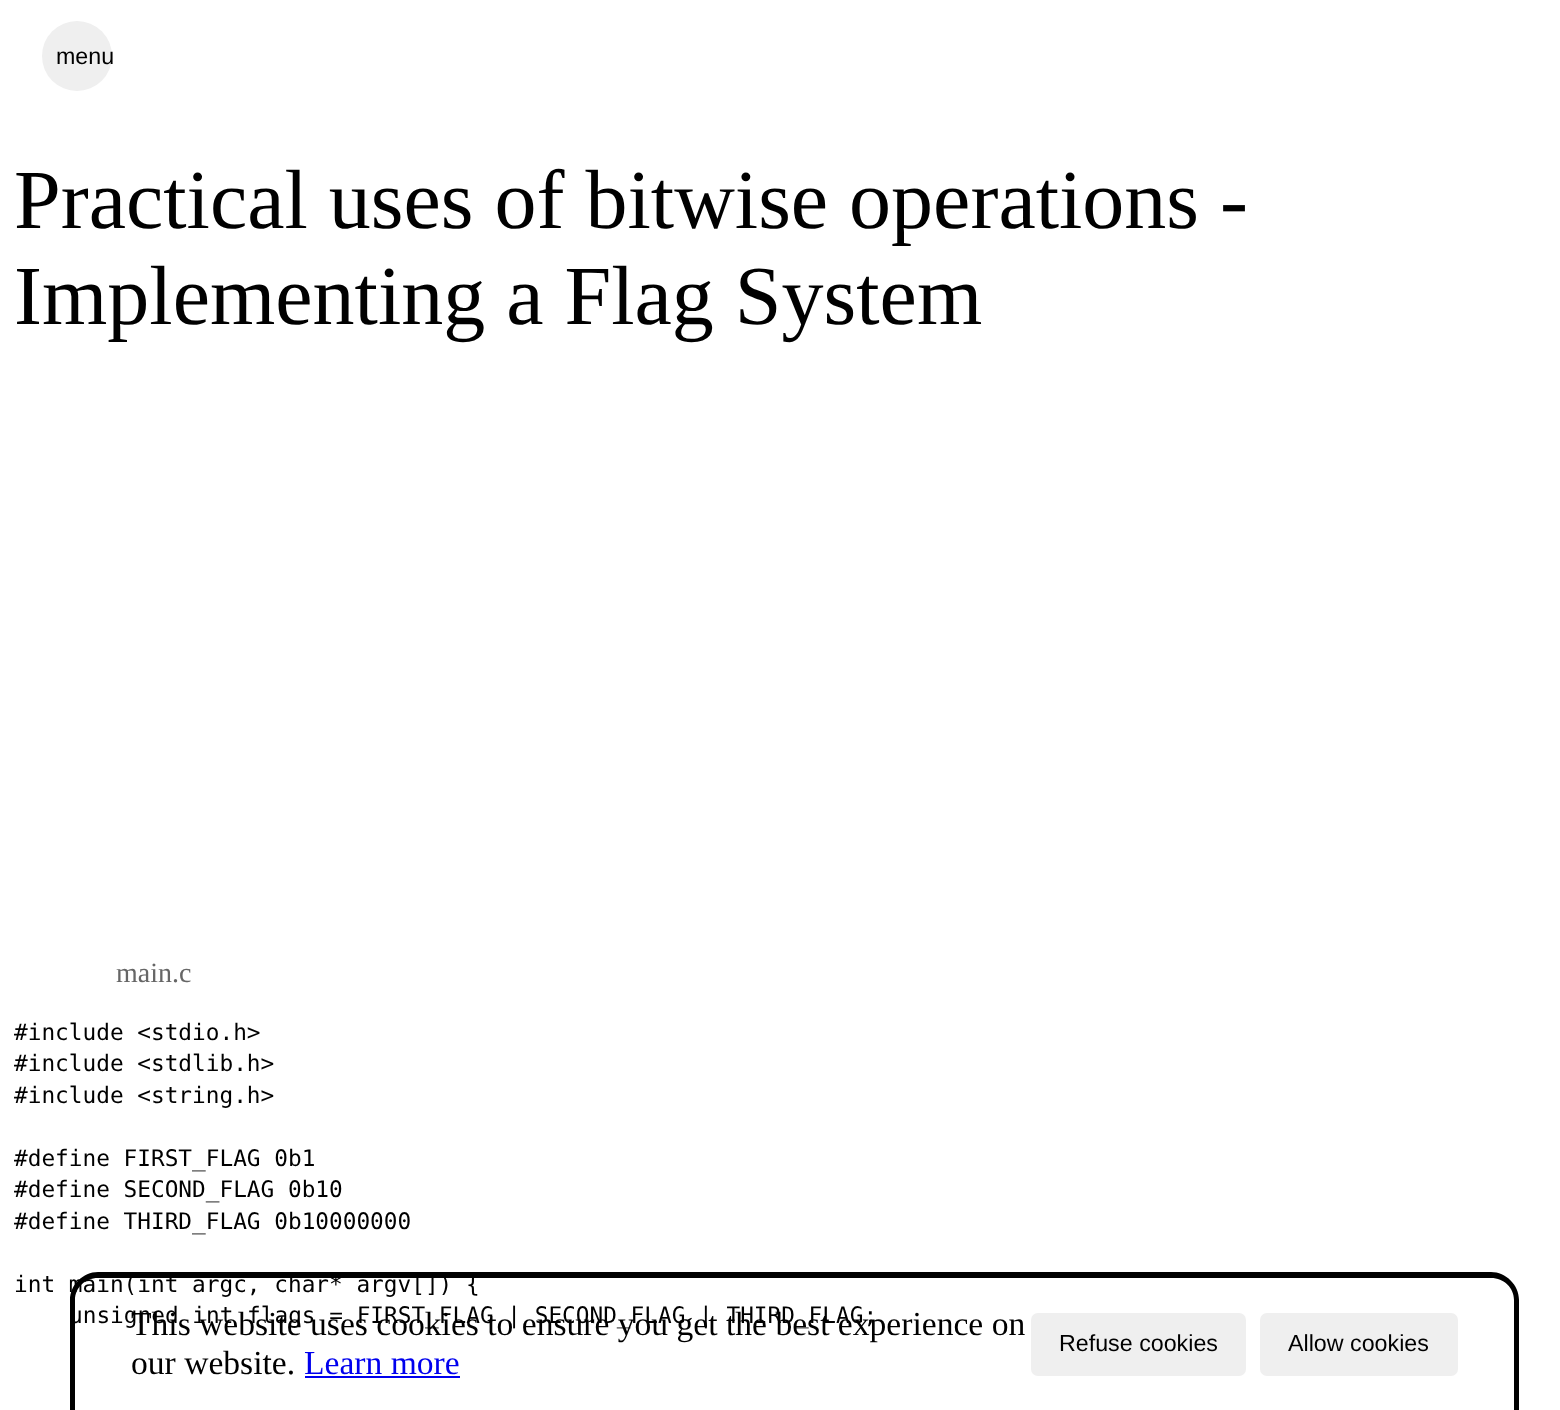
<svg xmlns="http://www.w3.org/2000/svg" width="1560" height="1410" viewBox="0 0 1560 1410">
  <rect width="100%" height="100%" fill="rgb(255,255,255)"/>
  <circle cx="77" cy="56" r="35" fill="rgb(239,239,239)"/>
  <text x="56" y="64" font-family="Liberation Sans" font-size="23.25" fill="rgb(0,0,0)">menu</text>
  <g font-family="Liberation Serif" font-size="84" fill="rgb(0,0,0)">
    <text>
      <tspan x="14" y="228">Practical uses of bitwise operations -</tspan>
      <tspan x="14" y="324">Implementing a Flag System</tspan>
    </text>
  </g>
  <text x="116" y="982" font-family="Liberation Serif" font-size="28" fill="rgb(102,102,102)">main.c</text>
  <g font-family="DejaVu Sans Mono" font-size="22.75" fill="rgb(0,0,0)">
    <text>
      <tspan x="14" y="1040">#include &lt;stdio.h&gt;</tspan>
      <tspan x="14" y="1071">#include &lt;stdlib.h&gt;</tspan>
      <tspan x="14" y="1103">#include &lt;string.h&gt;</tspan>
    </text>
    <text>
      <tspan x="14" y="1166">#define FIRST_FLAG 0b1</tspan>
      <tspan x="14" y="1197">#define SECOND_FLAG 0b10</tspan>
      <tspan x="14" y="1229">#define THIRD_FLAG 0b10000000</tspan>
    </text>
    <text x="14" y="1292">int main(int argc, char* argv[]) {</text>
    <text x="69" y="1323">unsigned int flags = FIRST_FLAG | SECOND_FLAG | THIRD_FLAG;</text>
  </g>
  <path d="M98 1272H1491C1506 1272 1519 1285 1519 1300V1410H70V1300C70 1285 83 1272 98 1272ZM98 1278H1491C1504 1278 1514 1288 1514 1300V1410H75V1300C75 1288 85 1278 98 1278Z" fill="rgb(0,0,0)" fill-rule="evenodd"/>
  <g font-family="Liberation Serif" font-size="33.6" fill="rgb(0,0,0)">
    <text>
      <tspan x="131" y="1335">This website uses cookies to ensure you get the best experience on</tspan>
      <tspan x="131" y="1374">our website.</tspan>
    </text>
  </g>
  <text x="304" y="1374" font-family="Liberation Serif" font-size="33.6" fill="rgb(0,0,238)">Learn more</text>
  <rect x="305" y="1376" width="155" height="2" fill="rgb(0,0,238)"/>
  <rect x="1031" y="1313" width="215" height="63" rx="7" fill="rgb(239,239,239)"/>
  <text x="1059" y="1351" font-family="Liberation Sans" font-size="23.25" fill="rgb(0,0,0)">Refuse cookies</text>
  <rect x="1260" y="1313" width="198" height="63" rx="7" fill="rgb(239,239,239)"/>
  <text x="1288" y="1351" font-family="Liberation Sans" font-size="23.25" fill="rgb(0,0,0)">Allow cookies</text>
</svg>
